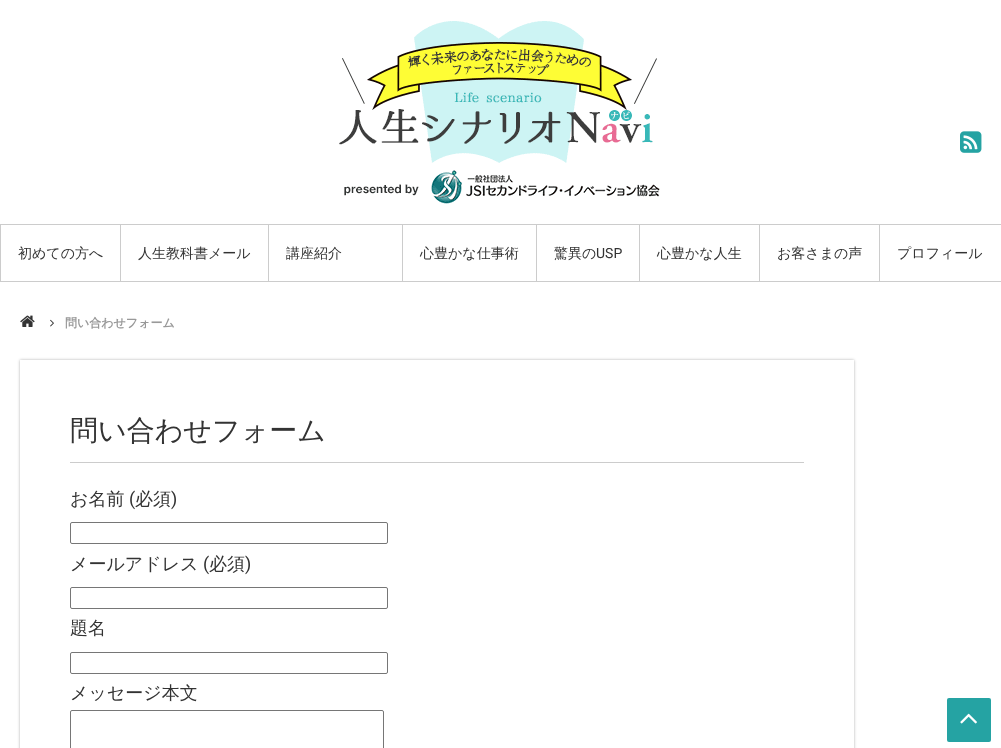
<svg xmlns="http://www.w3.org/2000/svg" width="1001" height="748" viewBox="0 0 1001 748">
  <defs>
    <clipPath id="clip1"><path d="M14 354H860V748H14ZM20 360H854V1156H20Z" clip-rule="evenodd"/></clipPath>
  </defs>
  <rect width="100%" height="100%" fill="rgb(255,255,255)"/>
  <image x="339" y="21" width="321" height="183" href="pic1.png"/>
  <image x="960" y="131" width="22" height="22" href="pic2.png"/>
  <rect x="0" y="224" width="1001" height="1" fill="rgb(204,204,204)"/>
  <rect x="0" y="281" width="1001" height="1" fill="rgb(204,204,204)"/>
  <rect x="0" y="225" width="1" height="56" fill="rgb(204,204,204)"/>
  <text x="18" y="258" font-family="WenQuanYi Zen Hei" font-size="14" font-weight="500" fill="rgb(51,51,51)">初めての方へ</text>
  <rect x="120" y="225" width="1" height="56" fill="rgb(204,204,204)"/>
  <text x="138" y="258" font-family="WenQuanYi Zen Hei" font-size="14" font-weight="500" fill="rgb(51,51,51)">人生教科書メール</text>
  <rect x="268" y="225" width="1" height="56" fill="rgb(204,204,204)"/>
  <text x="286" y="258" font-family="WenQuanYi Zen Hei" font-size="14" font-weight="500" fill="rgb(51,51,51)">講座紹介</text>
  <rect x="402" y="225" width="1" height="56" fill="rgb(204,204,204)"/>
  <text x="420" y="258" font-family="WenQuanYi Zen Hei" font-size="14" font-weight="500" fill="rgb(51,51,51)">心豊かな仕事術</text>
  <rect x="536" y="225" width="1" height="56" fill="rgb(204,204,204)"/>
  <text x="554" y="258" font-family="WenQuanYi Zen Hei" font-size="14" font-weight="500" fill="rgb(51,51,51)">驚異の</text>
  <text x="596" y="258" font-family="Roboto" font-size="14" fill="rgb(51,51,51)">USP</text>
  <rect x="639" y="225" width="1" height="56" fill="rgb(204,204,204)"/>
  <text x="657" y="258" font-family="WenQuanYi Zen Hei" font-size="14" font-weight="500" fill="rgb(51,51,51)">心豊かな人生</text>
  <rect x="759" y="225" width="1" height="56" fill="rgb(204,204,204)"/>
  <text x="777" y="258" font-family="WenQuanYi Zen Hei" font-size="14" font-weight="500" fill="rgb(51,51,51)">お客さまの声</text>
  <rect x="879" y="225" width="1" height="56" fill="rgb(204,204,204)"/>
  <text x="897" y="258" font-family="WenQuanYi Zen Hei" font-size="14" font-weight="500" fill="rgb(51,51,51)">プロフィール</text>
  <image x="20" y="315" width="15" height="12" href="pic3.png"/>
  <image x="50" y="319" width="4" height="8" href="pic4.png"/>
  <text x="65" y="327" font-family="WenQuanYi Zen Hei" font-size="12" font-weight="bold" fill="rgb(153,153,153)">問い合わせフォーム</text>
  <g clip-path="url(#clip1)">
    <rect x="20" y="360" width="834" height="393" fill="rgba(0,0,0,0.3)" filter="blur(1.5px)"/>
  </g>
  <rect x="70" y="462" width="734" height="1" fill="rgb(204,204,204)"/>
  <text x="70" y="440" font-family="WenQuanYi Zen Hei" font-size="28" font-weight="500" fill="rgb(51,51,51)">問い合わせフォーム</text>
  <text x="70" y="505" font-family="WenQuanYi Zen Hei" font-size="18" font-weight="500" fill="rgb(51,51,51)">お名前</text>
  <text x="129" y="505" font-family="Roboto" font-size="18" fill="rgb(51,51,51)">(</text>
  <text x="135" y="505" font-family="WenQuanYi Zen Hei" font-size="18" font-weight="500" fill="rgb(51,51,51)">必須</text>
  <text x="171" y="505" font-family="Roboto" font-size="18" fill="rgb(51,51,51)">)</text>
  <rect x="70.5" y="522.5" width="317" height="21" rx="1.5" fill="none" stroke="rgb(118,118,118)"/>
  <text x="70" y="570" font-family="WenQuanYi Zen Hei" font-size="18" font-weight="500" fill="rgb(51,51,51)">メールアドレス</text>
  <text x="203" y="570" font-family="Roboto" font-size="18" fill="rgb(51,51,51)">(</text>
  <text x="209" y="570" font-family="WenQuanYi Zen Hei" font-size="18" font-weight="500" fill="rgb(51,51,51)">必須</text>
  <text x="245" y="570" font-family="Roboto" font-size="18" fill="rgb(51,51,51)">)</text>
  <rect x="70.5" y="587.5" width="317" height="21" rx="1.5" fill="none" stroke="rgb(118,118,118)"/>
  <text x="70" y="634" font-family="WenQuanYi Zen Hei" font-size="18" font-weight="500" fill="rgb(51,51,51)">題名</text>
  <rect x="70.5" y="652.5" width="317" height="21" rx="1.5" fill="none" stroke="rgb(118,118,118)"/>
  <text x="70" y="699" font-family="WenQuanYi Zen Hei" font-size="18" font-weight="500" fill="rgb(51,51,51)">メッセージ本文</text>
  <rect x="70.5" y="710.5" width="313" height="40" rx="1.5" fill="none" stroke="rgb(118,118,118)"/>
  <rect x="947" y="698" width="44" height="44" rx="2" fill="rgb(37,163,163)"/>
  <image x="960" y="713" width="17" height="11" href="pic5.png"/>
</svg>
